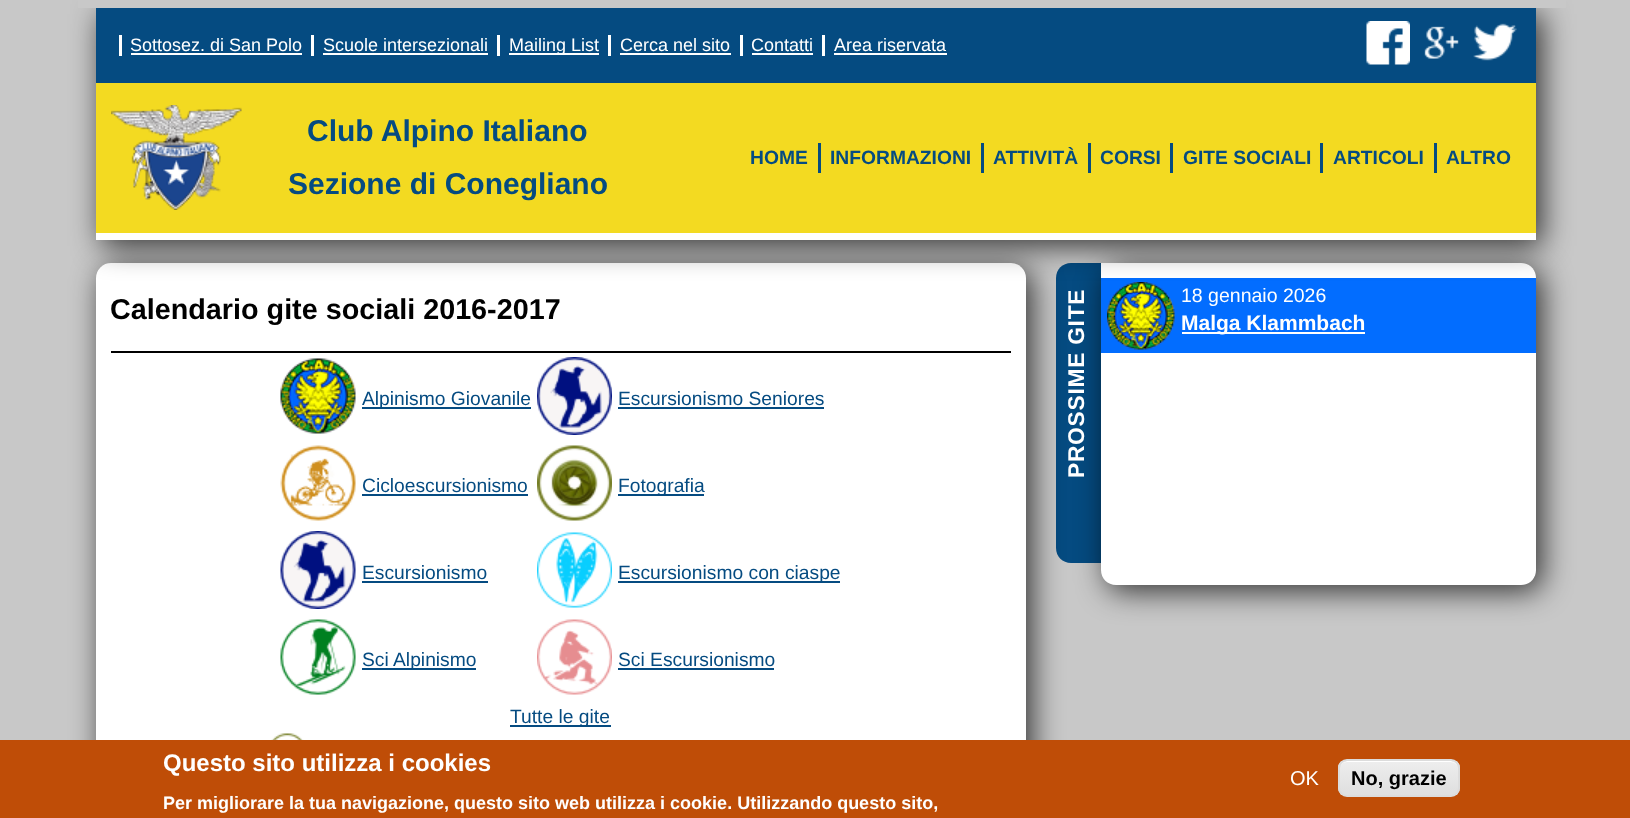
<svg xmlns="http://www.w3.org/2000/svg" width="1630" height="818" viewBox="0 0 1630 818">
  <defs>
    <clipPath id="clip1"><rect x="1338" y="759" width="122" height="38" rx="9"/></clipPath>
    <linearGradient id="g1" gradientUnits="userSpaceOnUse" x1="1399" y1="761" x2="1399" y2="795"><stop offset="0.05" stop-color="rgb(237,237,237)"/><stop offset="1" stop-color="rgb(223,223,223)"/></linearGradient>
  </defs>
  <rect width="100%" height="100%" fill="rgb(200,200,200)"/>
  <path d="M1071 263H1101V563H1071C1062.5 563 1056 556.5 1056 548V278C1056 269.5 1062.5 263 1071 263Z" fill="rgb(5,75,129)"/>
  <rect x="102" y="269" width="930" height="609" rx="15" fill="rgba(0,0,0,0.75)" filter="blur(15px)"/>
  <rect x="96" y="263" width="930" height="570" rx="15" fill="rgb(255,255,255)"/>
  <rect x="1107" y="269" width="435" height="322" rx="15" fill="rgba(0,0,0,0.75)" filter="blur(15px)"/>
  <path d="M1101 263H1521C1529.5 263 1536 269.5 1536 278V570C1536 578.5 1529.5 585 1521 585H1116C1107.5 585 1101 578.5 1101 570Z" fill="rgb(255,255,255)"/>
  <rect x="1101" y="278" width="435" height="75" fill="rgb(2,109,255)"/>
  <image x="1107" y="282" width="68" height="68" href="pic14.png"/>
  <rect x="102" y="14" width="1440" height="232" fill="rgba(0,0,0,0.75)" filter="blur(15px)"/>
  <rect x="78" y="0" width="1488" height="8" fill="rgb(200,200,200)"/>
  <rect x="96" y="233" width="1440" height="7" fill="rgb(255,255,255)"/>
  <rect x="96" y="8" width="1440" height="75" fill="rgb(5,75,129)"/>
  <image x="1366" y="21" width="44" height="44" href="pic1.png"/>
  <image x="1424" y="26" width="35" height="33" href="pic2.png"/>
  <image x="1473" y="23" width="44" height="38" href="pic3.png"/>
  <rect x="119" y="35" width="3" height="21" fill="rgb(255,255,255)"/>
  <text x="130" y="51" font-family="Liberation Sans" font-size="18" fill="rgb(255,255,255)">Sottosez. di San Polo</text>
  <rect x="131" y="53" width="171" height="2" fill="rgb(255,255,255)"/>
  <rect x="311" y="35" width="3" height="21" fill="rgb(255,255,255)"/>
  <text x="323" y="51" font-family="Liberation Sans" font-size="18" fill="rgb(255,255,255)">Scuole intersezionali</text>
  <rect x="323" y="53" width="165" height="2" fill="rgb(255,255,255)"/>
  <rect x="497" y="35" width="3" height="21" fill="rgb(255,255,255)"/>
  <rect x="509" y="53" width="90" height="2" fill="rgb(255,255,255)"/>
  <text x="509" y="51" font-family="Liberation Sans" font-size="18" fill="rgb(255,255,255)">Mailing List</text>
  <rect x="608" y="35" width="3" height="21" fill="rgb(255,255,255)"/>
  <text x="620" y="51" font-family="Liberation Sans" font-size="18" fill="rgb(255,255,255)">Cerca nel sito</text>
  <rect x="620" y="53" width="111" height="2" fill="rgb(255,255,255)"/>
  <rect x="740" y="35" width="3" height="21" fill="rgb(255,255,255)"/>
  <text x="751" y="51" font-family="Liberation Sans" font-size="18" fill="rgb(255,255,255)">Contatti</text>
  <rect x="752" y="53" width="61" height="2" fill="rgb(255,255,255)"/>
  <rect x="822" y="35" width="3" height="21" fill="rgb(255,255,255)"/>
  <text x="834" y="51" font-family="Liberation Sans" font-size="18" fill="rgb(255,255,255)">Area riservata</text>
  <rect x="834" y="53" width="113" height="2" fill="rgb(255,255,255)"/>
  <rect x="96" y="83" width="1440" height="150" fill="rgb(243,218,33)"/>
  <text x="750" y="164" font-family="Liberation Sans" font-size="19.25" font-weight="bold" fill="rgb(5,75,129)">HOME</text>
  <rect x="818" y="143" width="3" height="30" fill="rgb(5,75,129)"/>
  <text x="830" y="164" font-family="Liberation Sans" font-size="19.25" font-weight="bold" fill="rgb(5,75,129)">INFORMAZIONI</text>
  <rect x="981" y="143" width="3" height="30" fill="rgb(5,75,129)"/>
  <text x="993" y="164" font-family="Liberation Sans" font-size="19.25" font-weight="bold" fill="rgb(5,75,129)">ATTIVITÀ</text>
  <rect x="1088" y="143" width="3" height="30" fill="rgb(5,75,129)"/>
  <text x="1100" y="164" font-family="Liberation Sans" font-size="19.25" font-weight="bold" fill="rgb(5,75,129)">CORSI</text>
  <rect x="1170" y="143" width="3" height="30" fill="rgb(5,75,129)"/>
  <text x="1183" y="164" font-family="Liberation Sans" font-size="19.25" font-weight="bold" fill="rgb(5,75,129)">GITE SOCIALI</text>
  <rect x="1320" y="143" width="3" height="30" fill="rgb(5,75,129)"/>
  <text x="1333" y="164" font-family="Liberation Sans" font-size="19.25" font-weight="bold" fill="rgb(5,75,129)">ARTICOLI</text>
  <rect x="1434" y="143" width="3" height="30" fill="rgb(5,75,129)"/>
  <text x="1446" y="164" font-family="Liberation Sans" font-size="19.25" font-weight="bold" fill="rgb(5,75,129)">ALTRO</text>
  <image x="111" y="105" width="131" height="105" href="pic4.png"/>
  <g font-family="Liberation Sans" font-size="30" font-weight="bold" fill="rgb(5,75,129)">
    <text x="307" y="141">Club Alpino Italiano</text>
    <text x="288" y="194">Sezione di Conegliano</text>
  </g>
  <text x="110" y="319" font-family="Liberation Sans" font-size="28.75" font-weight="bold" fill="rgb(0,0,0)">Calendario gite sociali 2016-2017</text>
  <rect x="111" y="351" width="900" height="2" fill="rgb(0,0,0)"/>
  <image x="280" y="358" width="76" height="76" href="pic5.png"/>
  <rect x="362" y="407" width="169" height="2" fill="rgb(5,75,129)"/>
  <text x="362" y="405" font-family="Liberation Sans" font-size="19.25" fill="rgb(5,75,129)">Alpinismo Giovanile</text>
  <image x="537" y="357" width="75" height="78" href="pic6.png"/>
  <text x="618" y="405" font-family="Liberation Sans" font-size="19.25" fill="rgb(5,75,129)">Escursionismo Seniores</text>
  <rect x="618" y="407" width="206" height="2" fill="rgb(5,75,129)"/>
  <image x="280" y="445" width="76" height="76" href="pic7.png"/>
  <text x="362" y="492" font-family="Liberation Sans" font-size="19.25" fill="rgb(5,75,129)">Cicloescursionismo</text>
  <rect x="362" y="494" width="166" height="2" fill="rgb(5,75,129)"/>
  <image x="537" y="445" width="75" height="76" href="pic8.png"/>
  <rect x="618" y="494" width="86" height="2" fill="rgb(5,75,129)"/>
  <text x="618" y="492" font-family="Liberation Sans" font-size="19.25" fill="rgb(5,75,129)">Fotografia</text>
  <image x="280" y="531" width="76" height="78" href="pic9.png"/>
  <text x="362" y="579" font-family="Liberation Sans" font-size="19.25" fill="rgb(5,75,129)">Escursionismo</text>
  <rect x="362" y="581" width="126" height="2" fill="rgb(5,75,129)"/>
  <image x="537" y="532" width="75" height="76" href="pic10.png"/>
  <rect x="618" y="581" width="222" height="2" fill="rgb(5,75,129)"/>
  <text x="618" y="579" font-family="Liberation Sans" font-size="19.25" fill="rgb(5,75,129)">Escursionismo con ciaspe</text>
  <image x="280" y="619" width="76" height="76" href="pic11.png"/>
  <rect x="362" y="668" width="114" height="2" fill="rgb(5,75,129)"/>
  <text x="362" y="666" font-family="Liberation Sans" font-size="19.25" fill="rgb(5,75,129)">Sci Alpinismo</text>
  <image x="537" y="619" width="75" height="76" href="pic12.png"/>
  <text x="618" y="666" font-family="Liberation Sans" font-size="19.25" fill="rgb(5,75,129)">Sci Escursionismo</text>
  <rect x="618" y="668" width="156" height="2" fill="rgb(5,75,129)"/>
  <rect x="510" y="725" width="101" height="2" fill="rgb(5,75,129)"/>
  <text x="510" y="723" font-family="Liberation Sans" font-size="19.25" fill="rgb(5,75,129)">Tutte le gite</text>
  <image x="268" y="733" width="38" height="7" href="pic13.png"/>
  <text x="1084" y="478" transform="rotate(-90 1084 478)" font-family="Liberation Sans" font-size="22.75" font-weight="bold" letter-spacing="0.75" fill="rgb(255,255,255)">PROSSIME GITE</text>
  <text x="1181" y="302" font-family="Liberation Sans" font-size="19.5" fill="rgb(255,255,255)">18 gennaio 2026</text>
  <rect x="1182" y="332" width="183" height="2" fill="rgb(255,255,255)"/>
  <text x="1181" y="330" font-family="Liberation Sans" font-size="21" font-weight="bold" fill="rgb(255,255,255)">Malga Klammbach</text>
  <rect x="0" y="740" width="1630" height="78" fill="rgb(191,77,7)"/>
  <text x="163" y="771" font-family="Liberation Sans" font-size="24" font-weight="bold" fill="rgb(255,255,255)">Questo sito utilizza i cookies</text>
  <text x="163" y="809" font-family="Liberation Sans" font-size="18" font-weight="bold" fill="rgb(255,255,255)">Per migliorare la tua navigazione, questo sito web utilizza i cookie. Utilizzando questo sito,</text>
  <text x="1290" y="785" font-family="Liberation Sans" font-size="20" fill="rgb(255,255,255)">OK</text>
  <g clip-path="url(#clip1)">
    <rect x="1338" y="761" width="122" height="34" fill="url(#g1)"/>
  </g>
  <path d="M1347 762H1450C1455 762 1458 765 1458 770C1458 757 1441 761 1433 761H1365C1357 761 1340 757 1340 770C1340 765 1343 762 1347 762Z" fill="rgb(255,255,255)"/>
  <rect x="1339" y="760" width="120" height="36" rx="8" fill="none" stroke="rgb(220,220,220)" stroke-width="2"/>
  <text x="1351" y="785" font-family="Liberation Sans" font-size="20" font-weight="bold" fill="rgb(0,0,0)">No, grazie</text>
</svg>
